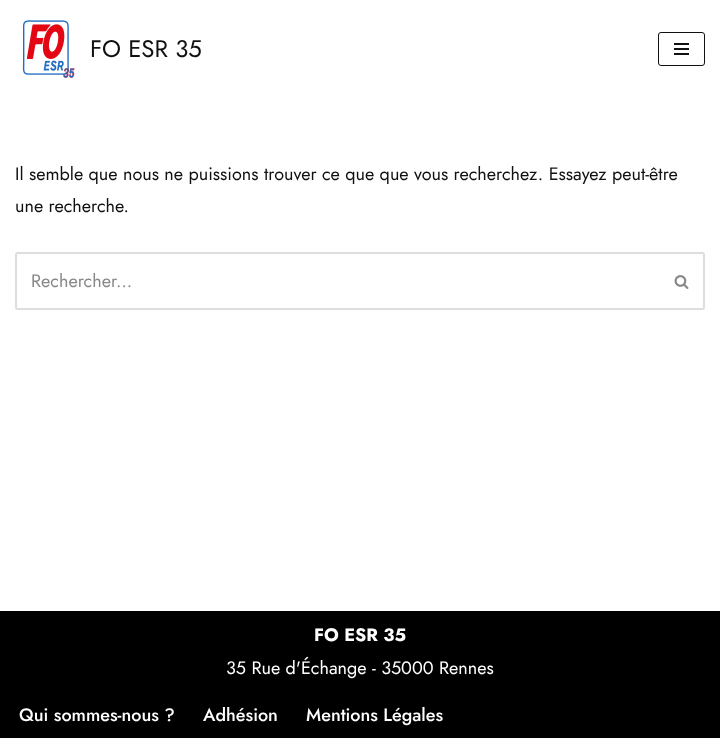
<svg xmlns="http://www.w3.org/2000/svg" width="720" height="738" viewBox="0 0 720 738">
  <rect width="100%" height="100%" fill="rgb(255,255,255)"/>
  <image x="22" y="20" width="53" height="58" href="pic1.png"/>
  <text x="90" y="57" font-family="Jost" font-size="24" fill="rgb(17,17,17)">FO ESR 35</text>
  <rect x="658.5" y="32.5" width="46" height="33" rx="2.5" fill="none" stroke="rgb(17,17,17)"/>
  <rect x="674" y="43" width="15" height="2" fill="rgb(17,17,17)"/>
  <rect x="674" y="48" width="15" height="2" fill="rgb(17,17,17)"/>
  <rect x="674" y="53" width="15" height="2" fill="rgb(17,17,17)"/>
  <g font-family="Jost" font-size="18" fill="rgb(17,17,17)">
    <text>
      <tspan x="15" y="180">Il semble que nous ne puissions trouver ce que que vous recherchez. Essayez peut-être</tspan>
      <tspan x="15" y="212">une recherche.</tspan>
    </text>
  </g>
  <path d="M18 252H660V310H18C16 310 15 309 15 307V255C15 253 16 252 18 252ZM18 254H660V308H18C17 308 17 308 17 307V255C17 254 17 254 18 254Z" fill="rgb(221,221,221)" fill-rule="evenodd"/>
  <text x="31" y="287" font-family="Jost" font-size="18" fill="rgb(136,136,136)">Rechercher...</text>
  <path d="M660 252H702C704 252 705 253 705 255V307C705 309 704 310 702 310H660ZM660 254H702C703 254 703 254 703 255V307C703 308 703 308 702 308H660Z" fill="rgb(221,221,221)" fill-rule="evenodd"/>
  <image x="674" y="275" width="15" height="14" href="pic2.png"/>
  <rect x="0" y="611" width="720" height="127" fill="rgb(0,0,0)"/>
  <text x="314" y="641" font-family="Jost" font-size="18" font-weight="bold" fill="rgb(255,255,255)">FO ESR 35</text>
  <text x="226" y="674" font-family="Jost" font-size="18" fill="rgb(255,255,255)">35 Rue d'Échange - 35000 Rennes</text>
  <g font-family="Jost" font-size="18" font-weight="500" fill="rgb(255,255,255)">
    <text x="19" y="721">Qui sommes-nous ?</text>
    <text x="203" y="721">Adhésion</text>
    <text x="306" y="721">Mentions Légales</text>
  </g>
</svg>
